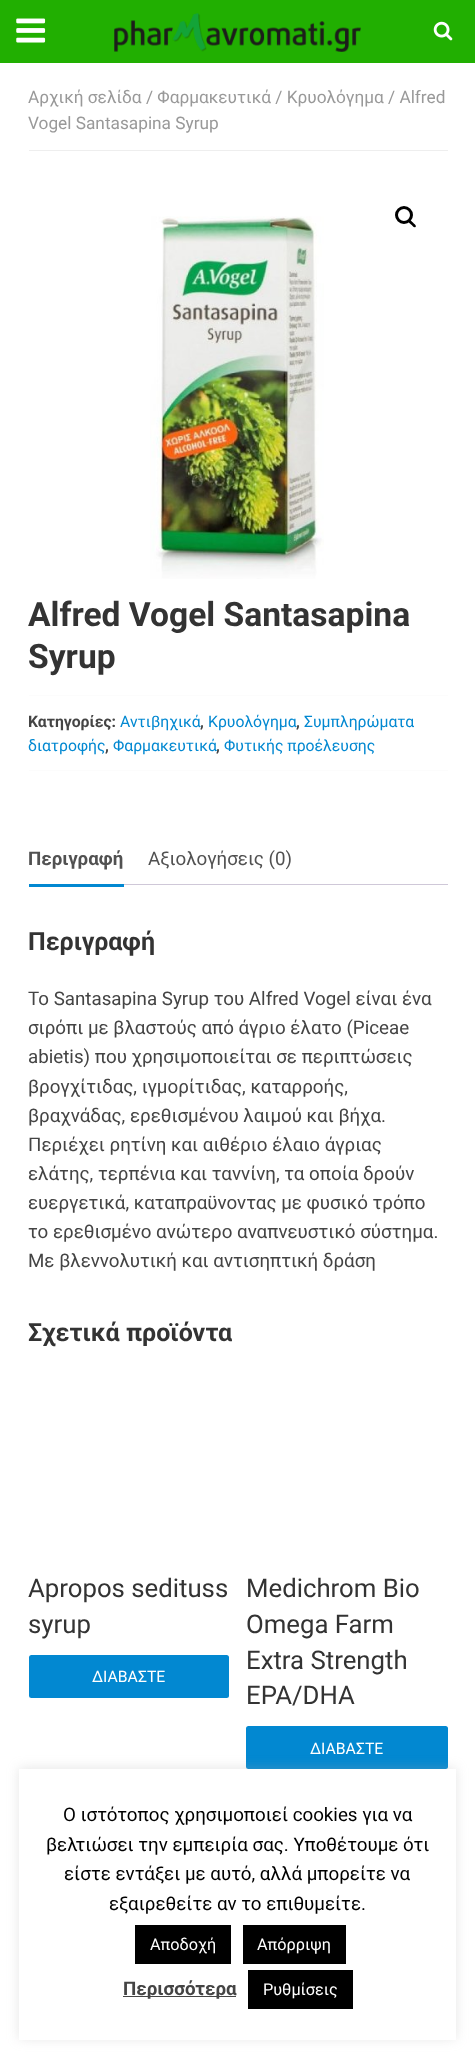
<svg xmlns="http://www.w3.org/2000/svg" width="475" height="2058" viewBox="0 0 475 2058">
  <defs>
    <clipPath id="clip1"><path d="M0 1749H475V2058H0ZM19 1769H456V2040H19Z" clip-rule="evenodd"/></clipPath>
  </defs>
  <rect width="100%" height="100%" fill="rgb(255,255,255)"/>
  <rect x="0" y="0" width="475" height="63" fill="rgb(33,175,1)"/>
  <image x="16" y="18" width="30" height="25" href="pic1.png"/>
  <image x="114" y="13" width="247" height="39" href="pic2.png"/>
  <image x="433" y="21" width="20" height="20" href="pic3.png"/>
  <rect x="29" y="150" width="419" height="1" fill="rgb(238,238,238)"/>
  <g font-family="Roboto" font-size="17.25" fill="rgb(153,153,153)">
    <text>
      <tspan x="28" y="103">Αρχική σελίδα / Φαρμακευτικά / Κρυολόγημα / Alfred</tspan>
      <tspan x="28" y="129">Vogel Santasapina Syrup</tspan>
    </text>
  </g>
  <image x="150" y="216" width="174" height="363" href="pic4.png"/>
  <circle cx="404" cy="215" r="7.5" fill="none" stroke="rgb(0,0,0)" stroke-width="3"/>
  <path d="M408.5 220C410 218.5 412 222 413 222.5C413.5 223.5 417 225.5 415.5 227C414 228.5 412 225 411 224.5C410 223.5 407 221.5 408.5 220Z" fill="rgb(0,0,0)"/>
  <g font-family="Roboto" font-size="33.6" font-weight="bold" fill="rgb(51,51,51)">
    <text>
      <tspan x="28" y="626">Alfred Vogel Santasapina</tspan>
      <tspan x="28" y="668">Syrup</tspan>
    </text>
  </g>
  <rect x="29" y="695" width="419" height="1" fill="rgb(252,252,252)"/>
  <rect x="29" y="770" width="419" height="1" fill="rgb(252,252,252)"/>
  <text x="28" y="727" font-family="Roboto" font-size="15.75" font-weight="bold" fill="rgb(68,68,68)">Κατηγορίες:</text>
  <text x="120" y="727" font-family="Roboto" font-size="15.75" fill="rgb(2,136,209)">Αντιβηχικά</text>
  <text x="200" y="727" font-family="Roboto" font-size="15.75" font-weight="bold" fill="rgb(68,68,68)">,</text>
  <text x="208" y="727" font-family="Roboto" font-size="15.75" fill="rgb(2,136,209)">Κρυολόγημα</text>
  <text x="296" y="727" font-family="Roboto" font-size="15.75" font-weight="bold" fill="rgb(68,68,68)">,</text>
  <g font-family="Roboto" font-size="15.75" fill="rgb(2,136,209)">
    <text x="304" y="727">Συμπληρώματα</text>
    <text x="28" y="751">διατροφής</text>
  </g>
  <text x="105" y="751" font-family="Roboto" font-size="15.75" font-weight="bold" fill="rgb(68,68,68)">,</text>
  <text x="113" y="751" font-family="Roboto" font-size="15.75" fill="rgb(2,136,209)">Φαρμακευτικά</text>
  <text x="216" y="751" font-family="Roboto" font-size="15.75" font-weight="bold" fill="rgb(68,68,68)">,</text>
  <text x="224" y="751" font-family="Roboto" font-size="15.75" fill="rgb(2,136,209)">Φυτικής προέλευσης</text>
  <rect x="29" y="884" width="95" height="3" fill="rgb(2,136,209)"/>
  <text x="28" y="865" font-family="Roboto" font-size="18.75" font-weight="bold" fill="rgb(81,81,81)">Περιγραφή</text>
  <text x="148" y="865" font-family="Roboto" font-size="18.75" fill="rgb(81,81,81)">Αξιολογήσεις (0)</text>
  <rect x="124" y="884" width="324" height="1" fill="rgb(207,200,216)"/>
  <text x="28" y="950" font-family="Roboto" font-size="25" font-weight="bold" fill="rgb(51,51,51)">Περιγραφή</text>
  <g font-family="Roboto" font-size="18.75" fill="rgb(68,68,68)">
    <text>
      <tspan x="28" y="1005">Το Santasapina Syrup του Alfred Vogel είναι ένα</tspan>
      <tspan x="28" y="1034">σιρόπι με βλαστούς από άγριο έλατο (Piceae</tspan>
      <tspan x="28" y="1063">abietis) που χρησιμοποιείται σε περιπτώσεις</tspan>
      <tspan x="28" y="1093">βρογχίτιδας, ιγμορίτιδας, καταρροής,</tspan>
      <tspan x="28" y="1122">βραχνάδας, ερεθισμένου λαιμού και βήχα.</tspan>
      <tspan x="28" y="1151">Περιέχει ρητίνη και αιθέριο έλαιο άγριας</tspan>
      <tspan x="28" y="1180">ελάτης, τερπένια και ταννίνη, τα οποία δρούν</tspan>
      <tspan x="28" y="1209">ευεργετικά, καταπραϋνοντας με φυσικό τρόπο</tspan>
      <tspan x="28" y="1238">το ερεθισμένο ανώτερο αναπνευστικό σύστημα.</tspan>
      <tspan x="28" y="1267">Με βλεννολυτική και αντισηπτική δράση</tspan>
    </text>
  </g>
  <text x="28" y="1341" font-family="Roboto" font-size="25" font-weight="bold" fill="rgb(51,51,51)">Σχετικά προϊόντα</text>
  <g font-family="Roboto" font-size="25.75" fill="rgb(51,51,51)">
    <text>
      <tspan x="28" y="1597">Apropos sedituss</tspan>
      <tspan x="28" y="1633">syrup</tspan>
    </text>
  </g>
  <rect x="29" y="1655" width="200" height="43" rx="2.5" fill="rgb(2,136,209)"/>
  <text x="92" y="1682" font-family="Roboto" font-size="15.75" fill="rgb(255,255,255)">ΔΙΑΒΑΣΤΕ</text>
  <g font-family="Roboto" font-size="25.75" fill="rgb(51,51,51)">
    <text>
      <tspan x="246" y="1597">Medichrom Bio</tspan>
      <tspan x="246" y="1633">Omega Farm</tspan>
      <tspan x="246" y="1669">Extra Strength</tspan>
      <tspan x="246" y="1704">EPA/DHA</tspan>
    </text>
  </g>
  <rect x="246" y="1726" width="202" height="43" rx="2.5" fill="rgb(2,136,209)"/>
  <text x="310" y="1754" font-family="Roboto" font-size="15.75" fill="rgb(255,255,255)">ΔΙΑΒΑΣΤΕ</text>
  <g clip-path="url(#clip1)">
    <rect x="19" y="1768" width="437" height="271" fill="rgba(172,171,171,0.3)" filter="blur(6px)"/>
  </g>
  <g font-family="Roboto" font-size="18.75" fill="rgb(0,0,0)">
    <text x="63" y="1821">Ο ιστότοπος χρησιμοποιεί cookies για να</text>
    <text x="46" y="1851">βελτιώσει την εμπειρία σας. Υποθέτουμε ότι</text>
    <text x="64" y="1880">είστε εντάξει με αυτό, αλλά μπορείτε να</text>
    <text x="109" y="1910">εξαιρεθείτε αν το επιθυμείτε.</text>
  </g>
  <rect x="135" y="1925" width="96" height="39" fill="rgb(0,0,0)"/>
  <text x="150" y="1950" font-family="Roboto" font-size="16.25" fill="rgb(255,255,255)">Αποδοχή</text>
  <rect x="243" y="1925" width="103" height="39" fill="rgb(0,0,0)"/>
  <text x="257" y="1950" font-family="Roboto" font-size="16.25" fill="rgb(255,255,255)">Απόρριψη</text>
  <rect x="123" y="1996" width="113" height="1" fill="rgb(68,68,68)"/>
  <text x="123" y="1995" font-family="Roboto" font-size="18.75" font-weight="bold" fill="rgb(68,68,68)">Περισσότερα</text>
  <rect x="248" y="1970" width="105" height="39" fill="rgb(0,0,0)"/>
  <text x="263" y="1995" font-family="Roboto" font-size="16.25" fill="rgb(255,255,255)">Ρυθμίσεις</text>
</svg>
